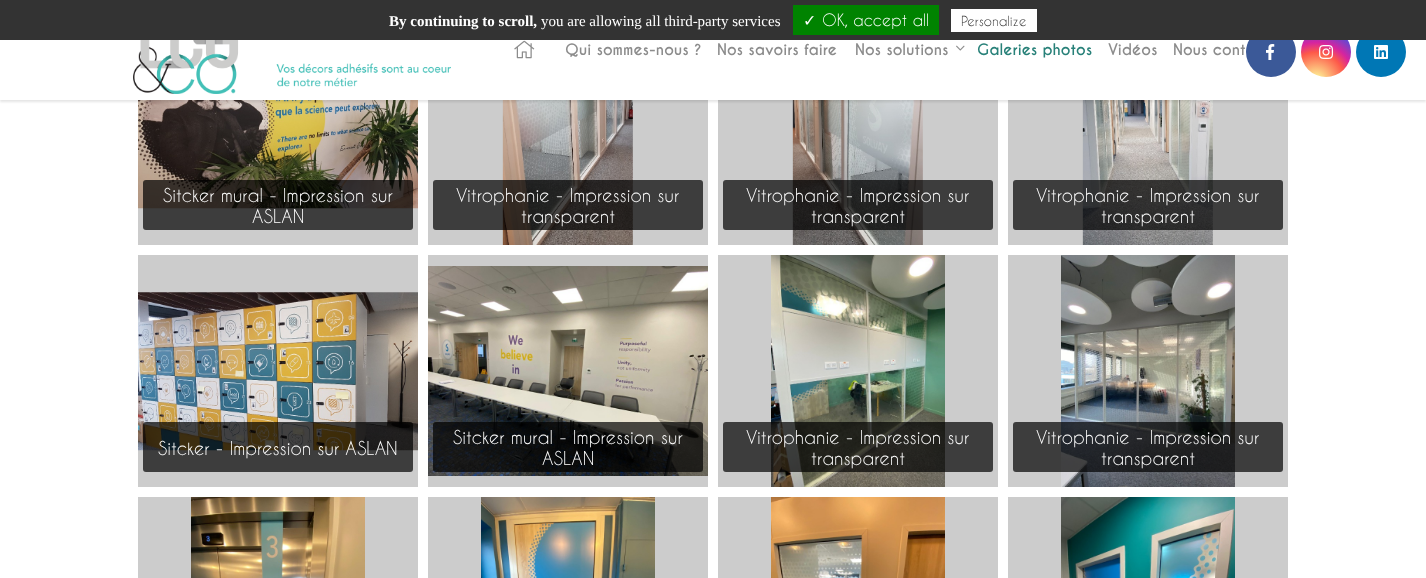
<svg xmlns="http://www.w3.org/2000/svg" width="1426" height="578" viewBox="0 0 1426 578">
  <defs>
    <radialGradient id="g1" gradientUnits="userSpaceOnUse" cx="1316" cy="81" r="64"><stop offset="0" stop-color="rgb(253,244,151)"/><stop offset="0.05" stop-color="rgb(253,244,151)"/><stop offset="0.45" stop-color="rgb(253,89,73)"/><stop offset="0.6" stop-color="rgb(214,36,159)"/><stop offset="0.9" stop-color="rgb(40,90,235)"/></radialGradient>
  </defs>
  <rect width="100%" height="100%" fill="rgb(255,255,255)"/>
  <rect x="138" y="208" width="280" height="37" fill="rgb(204,204,204)"/>
  <image x="138" y="100" width="280" height="109" href="pic7.png"/>
  <rect x="428" y="100" width="280" height="145" fill="rgb(204,204,204)"/>
  <image x="502" y="100" width="131" height="145" href="pic8.png"/>
  <rect x="718" y="100" width="280" height="145" fill="rgb(204,204,204)"/>
  <image x="792" y="100" width="131" height="145" href="pic9.png"/>
  <rect x="1008" y="100" width="280" height="145" fill="rgb(204,204,204)"/>
  <image x="1082" y="100" width="131" height="145" href="pic10.png"/>
  <rect x="0" y="2" width="1426" height="100" fill="rgba(0,0,0,0.1)" filter="blur(1px)"/>
  <rect x="0" y="40" width="1426" height="60" fill="rgb(255,255,255)"/>
  <circle cx="1271" cy="52" r="25" fill="rgb(59,89,152)"/>
  <circle cx="1326" cy="52" r="25" fill="url(#g1)"/>
  <circle cx="1381" cy="52" r="25" fill="rgb(0,119,181)"/>
  <rect x="0" y="0" width="1426" height="40" fill="rgb(51,51,51)"/>
  <text x="389" y="26" font-family="Liberation Serif" font-size="15" font-weight="bold" fill="rgb(255,255,255)">By continuing to scroll,</text>
  <text x="541" y="26" font-family="Liberation Serif" font-size="15" fill="rgb(255,255,255)">you are allowing all third-party services</text>
  <rect x="793" y="5" width="146" height="30" fill="rgb(0,131,0)"/>
  <text x="803" y="26" font-family="DejaVu Sans" font-size="16" fill="rgb(255,255,255)">✓</text>
  <text x="822" y="26" font-family="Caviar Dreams" font-size="16" fill="rgb(255,255,255)">OK, accept all</text>
  <rect x="951" y="9" width="86" height="23" fill="rgb(255,255,255)"/>
  <text x="961" y="26" font-family="Caviar Dreams" font-size="13" fill="rgb(51,51,51)">Personalize</text>
  <image x="133" y="40" width="318" height="54" href="pic1.png"/>
  <image x="514" y="40" width="21" height="19" href="pic2.png"/>
  <g font-family="Caviar Dreams" font-size="15" font-weight="bold" fill="rgb(140,140,140)">
    <text x="565" y="55">Qui sommes-nous ?</text>
    <text x="717" y="55">Nos savoirs faire</text>
    <text x="855" y="55">Nos solutions</text>
  </g>
  <image x="956" y="45" width="9" height="6" href="pic3.png"/>
  <text x="977" y="55" font-family="Caviar Dreams" font-size="15" font-weight="bold" fill="rgb(40,129,121)">Galeries photos</text>
  <g font-family="Caviar Dreams" font-size="15" font-weight="bold" fill="rgb(140,140,140)">
    <text x="1108" y="55">Vidéos</text>
    <text x="1173" y="55">Nous cont</text>
  </g>
  <image x="1266" y="44" width="9" height="16" href="pic4.png"/>
  <image x="1319" y="45" width="15" height="14" href="pic5.png"/>
  <image x="1374" y="45" width="14" height="14" href="pic6.png"/>
  <rect x="143" y="180" width="270" height="50" rx="3" fill="rgba(0,0,0,0.7)"/>
  <g font-family="Caviar Dreams" font-size="18" fill="rgb(255,255,255)">
    <text x="163" y="202">Sitcker mural - Impression sur</text>
    <text x="252" y="223">ASLAN</text>
  </g>
  <rect x="433" y="180" width="270" height="50" rx="3" fill="rgba(0,0,0,0.7)"/>
  <g font-family="Caviar Dreams" font-size="18" fill="rgb(255,255,255)">
    <text x="456" y="202">Vitrophanie - Impression sur</text>
    <text x="521" y="223">transparent</text>
  </g>
  <rect x="723" y="180" width="270" height="50" rx="3" fill="rgba(0,0,0,0.7)"/>
  <g font-family="Caviar Dreams" font-size="18" fill="rgb(255,255,255)">
    <text x="746" y="202">Vitrophanie - Impression sur</text>
    <text x="811" y="223">transparent</text>
  </g>
  <rect x="1013" y="180" width="270" height="50" rx="3" fill="rgba(0,0,0,0.7)"/>
  <g font-family="Caviar Dreams" font-size="18" fill="rgb(255,255,255)">
    <text x="1036" y="202">Vitrophanie - Impression sur</text>
    <text x="1101" y="223">transparent</text>
  </g>
  <rect x="138" y="255" width="280" height="232" fill="rgb(204,204,204)"/>
  <image x="138" y="292" width="280" height="159" href="pic11.png"/>
  <rect x="143" y="422" width="270" height="50" rx="3" fill="rgba(0,0,0,0.7)"/>
  <text x="158" y="455" font-family="Caviar Dreams" font-size="18" fill="rgb(255,255,255)">Sitcker - Impression sur ASLAN</text>
  <rect x="428" y="255" width="280" height="232" fill="rgb(204,204,204)"/>
  <image x="428" y="266" width="280" height="210" href="pic12.png"/>
  <rect x="433" y="422" width="270" height="50" rx="3" fill="rgba(0,0,0,0.7)"/>
  <g font-family="Caviar Dreams" font-size="18" fill="rgb(255,255,255)">
    <text x="453" y="444">Sitcker mural - Impression sur</text>
    <text x="542" y="465">ASLAN</text>
  </g>
  <rect x="718" y="255" width="280" height="232" fill="rgb(204,204,204)"/>
  <image x="771" y="255" width="174" height="232" href="pic13.png"/>
  <rect x="723" y="422" width="270" height="50" rx="3" fill="rgba(0,0,0,0.7)"/>
  <g font-family="Caviar Dreams" font-size="18" fill="rgb(255,255,255)">
    <text x="746" y="444">Vitrophanie - Impression sur</text>
    <text x="811" y="465">transparent</text>
  </g>
  <rect x="1008" y="255" width="280" height="232" fill="rgb(204,204,204)"/>
  <image x="1061" y="255" width="174" height="232" href="pic14.png"/>
  <rect x="1013" y="422" width="270" height="50" rx="3" fill="rgba(0,0,0,0.7)"/>
  <g font-family="Caviar Dreams" font-size="18" fill="rgb(255,255,255)">
    <text x="1036" y="444">Vitrophanie - Impression sur</text>
    <text x="1101" y="465">transparent</text>
  </g>
  <rect x="138" y="497" width="280" height="81" fill="rgb(204,204,204)"/>
  <image x="191" y="497" width="174" height="81" href="pic15.png"/>
  <rect x="428" y="497" width="280" height="81" fill="rgb(204,204,204)"/>
  <image x="481" y="497" width="174" height="81" href="pic16.png"/>
  <rect x="718" y="497" width="280" height="81" fill="rgb(204,204,204)"/>
  <image x="771" y="497" width="174" height="81" href="pic17.png"/>
  <rect x="1008" y="497" width="280" height="81" fill="rgb(204,204,204)"/>
  <image x="1061" y="497" width="174" height="81" href="pic18.png"/>
</svg>
